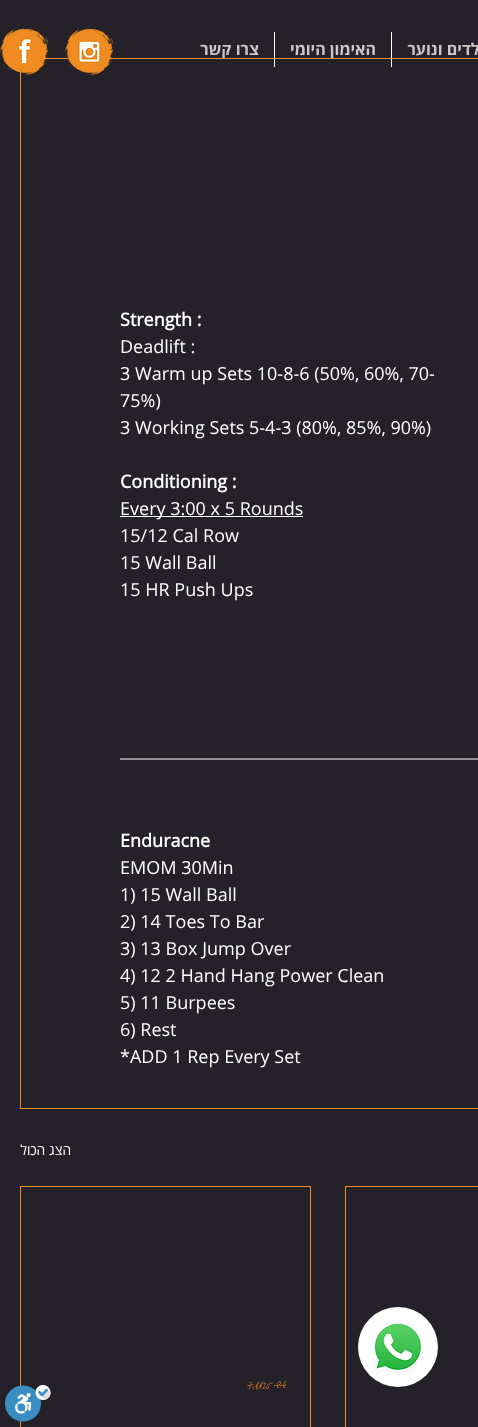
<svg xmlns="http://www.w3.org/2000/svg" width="478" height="1427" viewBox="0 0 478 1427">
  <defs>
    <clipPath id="clip1"><rect x="45" y="1374" width="241" height="18"/></clipPath>
    <clipPath id="clip2"><rect x="219" y="331" width="40" height="40" rx="20"/></clipPath>
  </defs>
  <rect width="100%" height="100%" fill="rgb(37,33,40)"/>
  <rect x="20.5" y="58.5" width="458" height="1050" fill="none" stroke="rgb(240,140,33)"/>
  <image x="0" y="25" width="49" height="50" href="pic1.png"/>
  <image x="65" y="25" width="49" height="50" href="pic2.png"/>
  <text x="259" y="55" font-family="'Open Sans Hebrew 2'" font-size="16" font-weight="bold" direction="rtl" fill="rgb(201,200,201)">צרו קשר</text>
  <rect x="274" y="32" width="1" height="35" fill="rgb(255,255,255)"/>
  <text x="376" y="55" font-family="'Open Sans Hebrew 2'" font-size="16" font-weight="bold" direction="rtl" fill="rgb(201,200,201)">האימון היומי</text>
  <rect x="391" y="32" width="1" height="35" fill="rgb(255,255,255)"/>
  <text x="484" y="55" font-family="'Open Sans Hebrew 2'" font-size="16" font-weight="bold" direction="rtl" fill="rgb(201,200,201)">ילדים ונוער</text>
  <text x="120" y="326" font-family="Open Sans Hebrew" font-size="18" font-weight="bold" fill="rgb(255,255,255)">Strength :</text>
  <g font-family="Open Sans Hebrew" font-size="18" fill="rgb(255,255,255)">
    <text>
      <tspan x="120" y="353">Deadlift :</tspan>
      <tspan x="120" y="380">3 Warm up Sets 10-8-6 (50%, 60%, 70-</tspan>
      <tspan x="120" y="407">75%)</tspan>
      <tspan x="120" y="434">3 Working Sets 5-4-3 (80%, 85%, 90%)</tspan>
    </text>
  </g>
  <text x="120" y="488" font-family="Open Sans Hebrew" font-size="18" font-weight="bold" fill="rgb(255,255,255)">Conditioning :</text>
  <rect x="120" y="516" width="183" height="1" fill="rgb(255,255,255)"/>
  <g font-family="Open Sans Hebrew" font-size="18" fill="rgb(255,255,255)">
    <text>
      <tspan x="120" y="515">Every 3:00 x 5 Rounds</tspan>
      <tspan x="120" y="542">15/12 Cal Row</tspan>
      <tspan x="120" y="569">15 Wall Ball</tspan>
      <tspan x="120" y="596">15 HR Push Ups</tspan>
    </text>
  </g>
  <path d="M120 759H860" fill="none" stroke="rgb(255,255,255)"/>
  <text x="120" y="847" font-family="Open Sans Hebrew" font-size="18" font-weight="bold" fill="rgb(255,255,255)">Enduracne</text>
  <g font-family="Open Sans Hebrew" font-size="18" fill="rgb(255,255,255)">
    <text>
      <tspan x="120" y="874">EMOM 30Min</tspan>
      <tspan x="120" y="901">1) 15 Wall Ball</tspan>
      <tspan x="120" y="928">2) 14 Toes To Bar</tspan>
      <tspan x="120" y="955">3) 13 Box Jump Over</tspan>
      <tspan x="120" y="982">4) 12 2 Hand Hang Power Clean</tspan>
      <tspan x="120" y="1009">5) 11 Burpees</tspan>
      <tspan x="120" y="1036">6) Rest</tspan>
      <tspan x="120" y="1063">*ADD 1 Rep Every Set</tspan>
    </text>
  </g>
  <text x="71" y="1155" font-family="Open Sans Hebrew" font-size="14" direction="rtl" fill="rgb(255,255,255)">הצג הכול</text>
  <rect x="20.5" y="1186.5" width="290" height="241" fill="none" stroke="rgb(240,140,33)"/>
  <text x="248" y="1388" font-family="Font" font-size="18" font-weight="500" fill="rgb(240,140,33)">7.11.25</text>
  <g clip-path="url(#clip1)">
    <text x="286" y="1388" font-family="Font" font-size="18" font-weight="500" direction="rtl" fill="rgb(240,140,33)">שישי</text>
  </g>
  <rect x="345.5" y="1186.5" width="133" height="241" fill="none" stroke="rgb(240,140,33)"/>
  <circle cx="398" cy="1347" r="40" fill="rgb(255,255,255)"/>
  <image x="370" y="1323" width="55" height="52" href="pic3.png"/>
  <g clip-path="url(#clip2)">
    <rect x="219" y="331" width="16" height="40" fill="rgb(37,33,40)"/>
    <rect x="243" y="331" width="16" height="40" fill="rgb(37,33,40)"/>
  </g>
  <image x="5" y="1385" width="46" height="37" href="pic4.png"/>
</svg>
